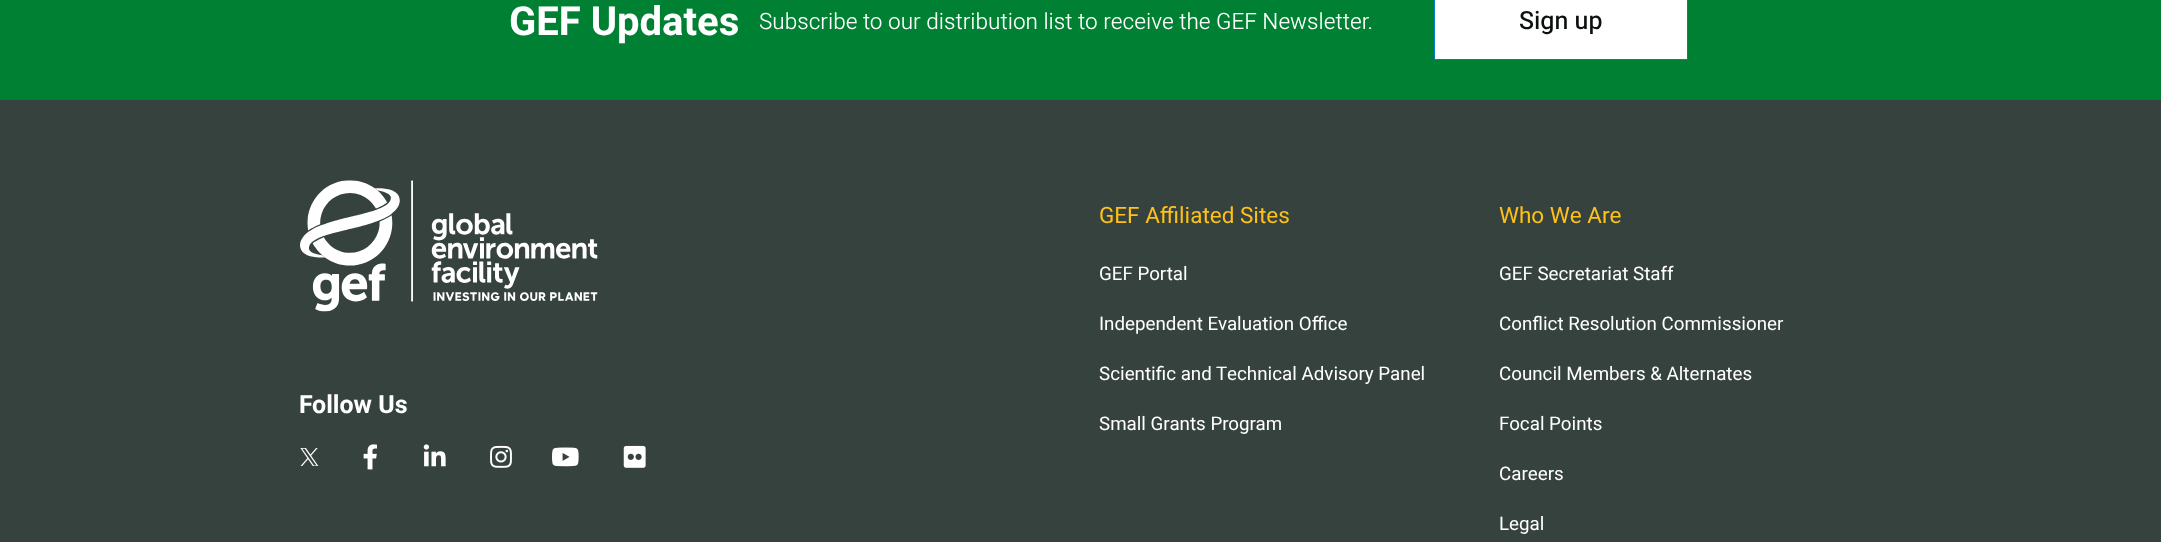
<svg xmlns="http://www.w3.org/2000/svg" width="2161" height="542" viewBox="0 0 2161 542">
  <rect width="100%" height="100%" fill="rgb(0,128,51)"/>
  <text x="509" y="35" font-family="Heebo" font-size="40" font-weight="bold" fill="rgb(255,255,255)">GEF Updates</text>
  <text x="759" y="29" font-family="Heebo" font-size="22.5" font-weight="300" fill="rgb(255,255,255)">Subscribe to our distribution list to receive the GEF Newsletter.</text>
  <rect x="1434.5" y="-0.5" width="253" height="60" fill="rgb(255,255,255)" stroke="rgb(8,118,205)"/>
  <text x="1519" y="29" font-family="Heebo" font-size="25" font-weight="500" fill="rgb(12,17,15)">Sign up</text>
  <rect x="0" y="100" width="2161" height="442" fill="rgb(54,66,62)"/>
  <image x="300" y="180" width="298" height="132" href="pic1.png"/>
  <text x="299" y="413" font-family="Heebo" font-size="25" font-weight="bold" fill="rgb(255,255,255)">Follow Us</text>
  <image x="300" y="448" width="19" height="18" href="pic2.png"/>
  <image x="363" y="444" width="14" height="26" href="pic3.png"/>
  <image x="423" y="444" width="23" height="23" href="pic4.png"/>
  <image x="490" y="445" width="22" height="23" href="pic5.png"/>
  <image x="552" y="447" width="27" height="20" href="pic6.png"/>
  <image x="623" y="445" width="23" height="23" href="pic7.png"/>
  <text x="1099" y="223" font-family="Heebo" font-size="22.5" fill="rgb(255,192,25)">GEF Affiliated Sites</text>
  <g font-family="Heebo" font-size="18.75" fill="rgb(255,255,255)">
    <text x="1099" y="280">GEF Portal</text>
    <text x="1099" y="330">Independent Evaluation Office</text>
    <text x="1099" y="380">Scientific and Technical Advisory Panel</text>
    <text x="1099" y="430">Small Grants Program</text>
  </g>
  <text x="1499" y="223" font-family="Heebo" font-size="22.5" fill="rgb(255,192,25)">Who We Are</text>
  <g font-family="Heebo" font-size="18.75" fill="rgb(255,255,255)">
    <text x="1499" y="280">GEF Secretariat Staff</text>
    <text x="1499" y="330">Conflict Resolution Commissioner</text>
    <text x="1499" y="380">Council Members &amp; Alternates</text>
    <text x="1499" y="430">Focal Points</text>
    <text x="1499" y="480">Careers</text>
    <text x="1499" y="530">Legal</text>
  </g>
</svg>
